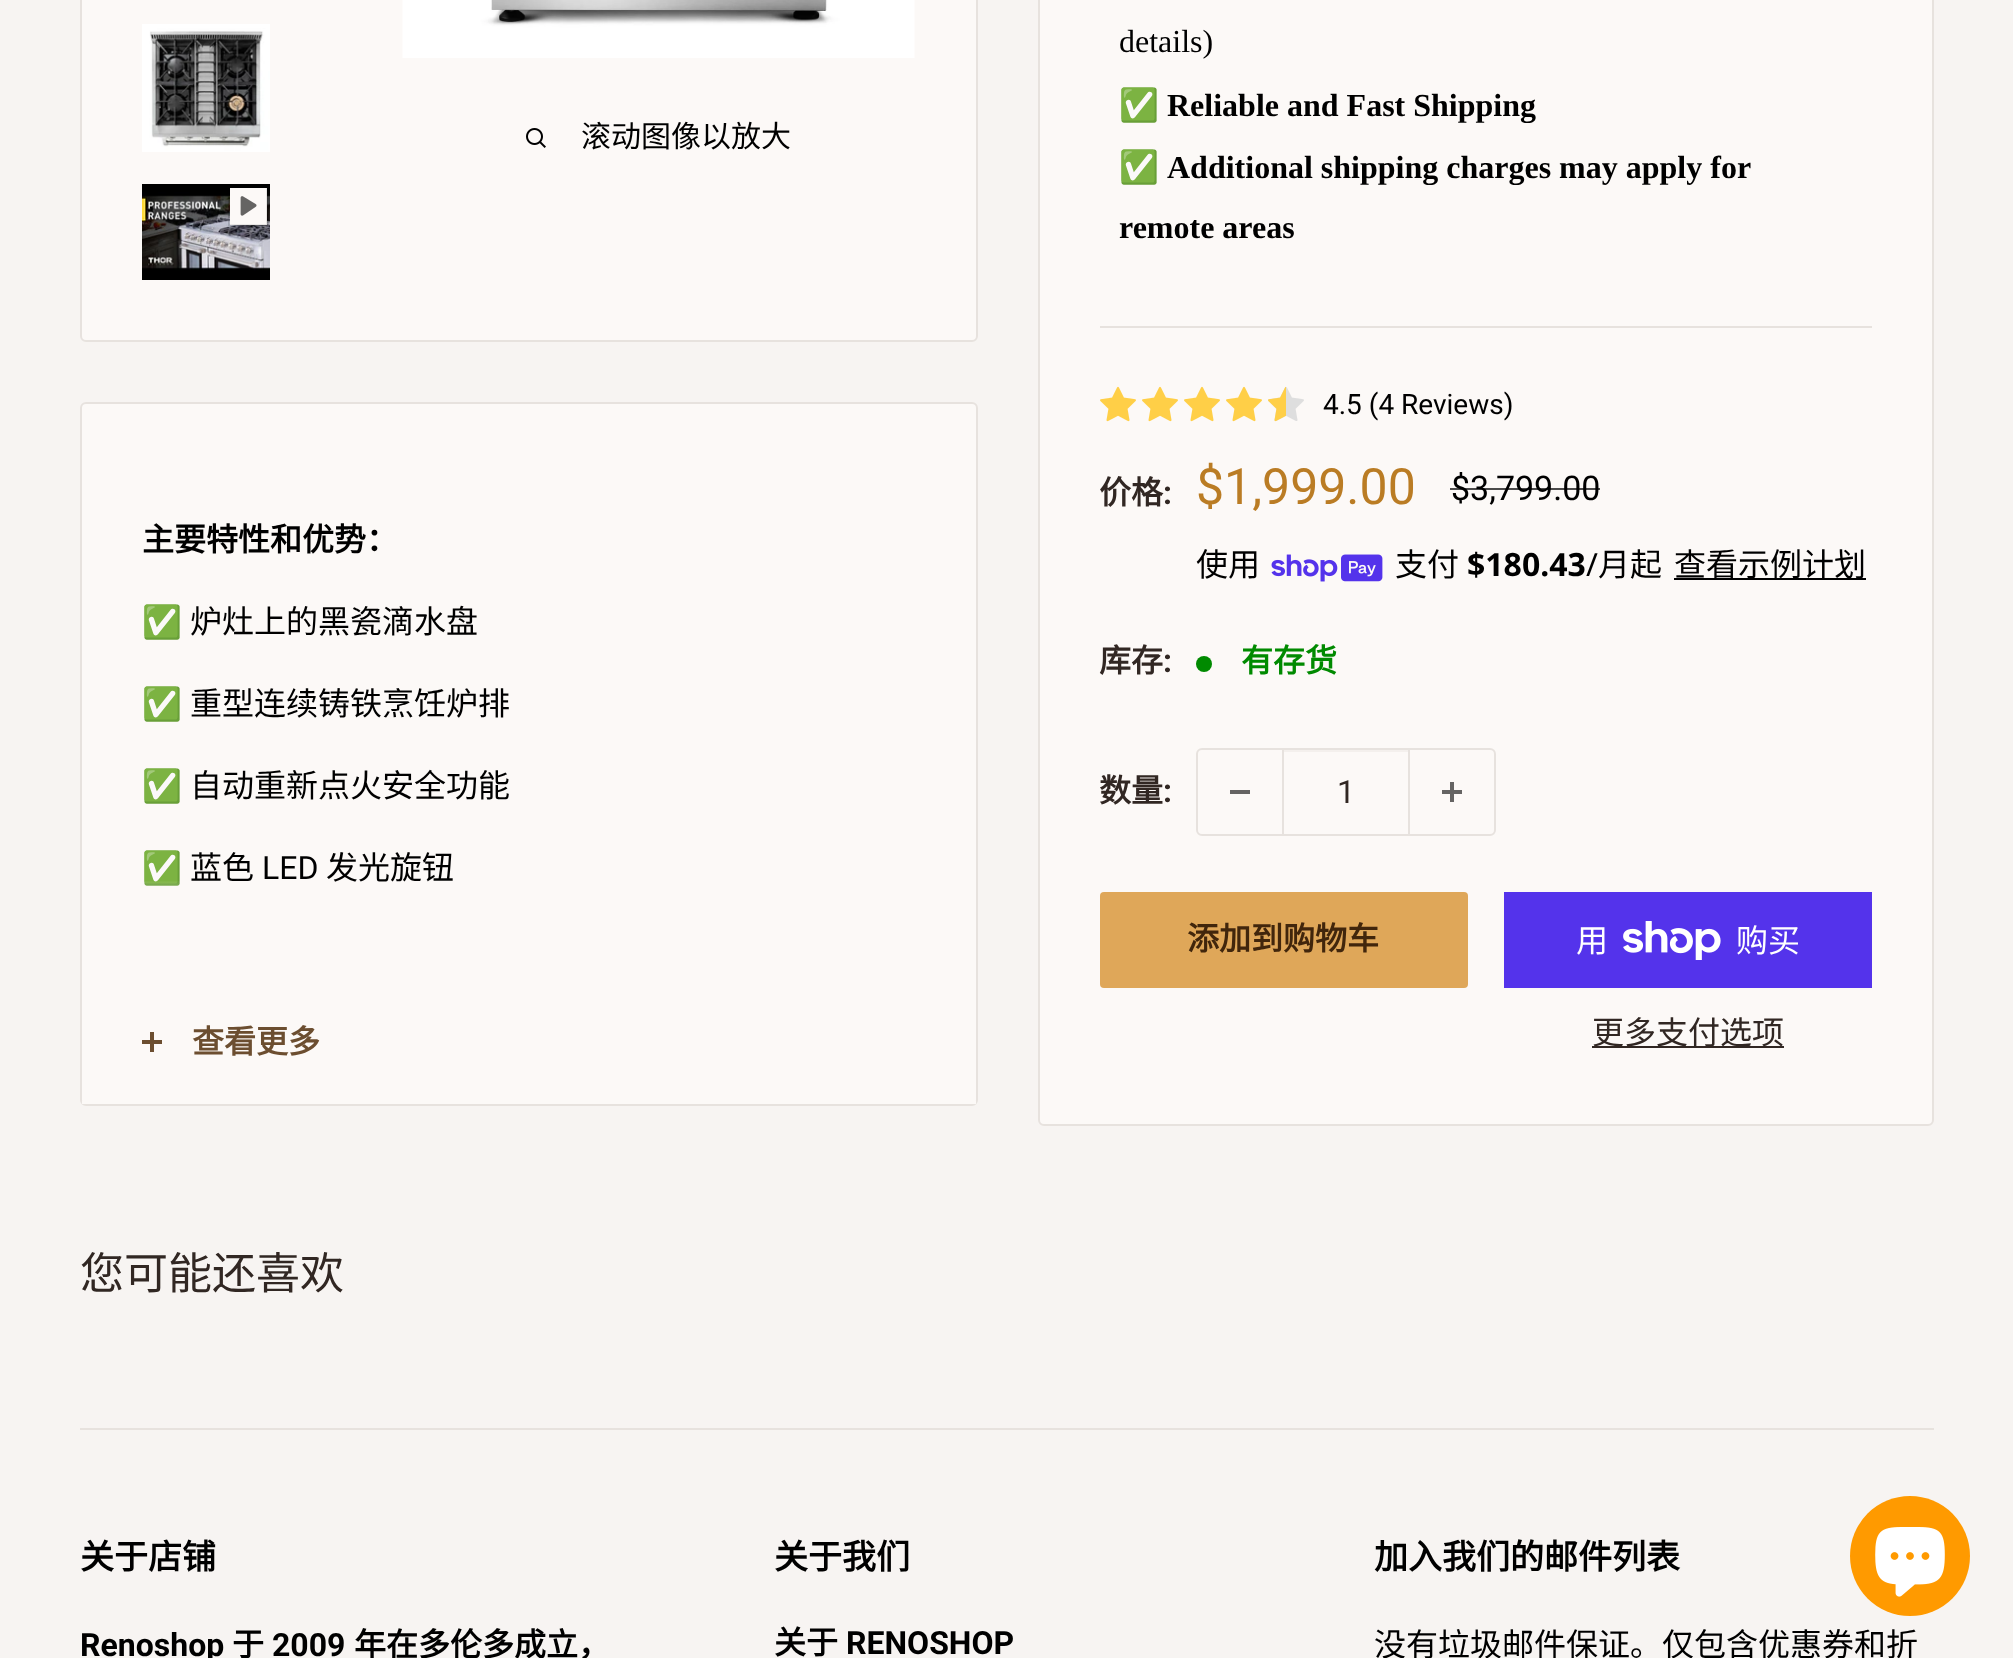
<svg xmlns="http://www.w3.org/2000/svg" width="2013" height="1658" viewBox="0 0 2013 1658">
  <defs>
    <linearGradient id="g1" gradientUnits="userSpaceOnUse" x1="529" y1="880" x2="529" y2="980"><stop offset="0" stop-color="rgb(252,249,247)" stop-opacity="0"/><stop offset="0.15" stop-color="rgb(252,249,247)" stop-opacity="0.4"/><stop offset="1" stop-color="rgb(252,249,247)"/></linearGradient>
  </defs>
  <rect width="100%" height="100%" fill="rgb(247,244,242)"/>
  <rect x="81" y="-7" width="896" height="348" rx="5" fill="rgb(252,249,247)" stroke="rgb(231,226,222)" stroke-width="2"/>
  <image x="142" y="24" width="128" height="128" href="pic1.png"/>
  <image x="142" y="184" width="128" height="96" href="pic2.png"/>
  <image x="228" y="188" width="40" height="38" href="pic3.png"/>
  <image x="402" y="0" width="513" height="58" href="pic4.png"/>
  <image x="526" y="128" width="20" height="20" href="pic5.png"/>
  <text x="581" y="147" font-family="Noto Sans CJK SC" font-size="30" fill="rgb(0,0,0)">滚动图像以放大</text>
  <rect x="1039" y="-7" width="894" height="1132" rx="5" fill="rgb(252,249,247)" stroke="rgb(231,226,222)" stroke-width="2"/>
  <text x="1119" y="52" font-family="Liberation Serif" font-size="32" fill="rgb(0,0,0)">details)</text>
  <text x="1119" y="116" font-family="Noto Color Emoji" font-size="32" fill="rgb(0,0,0)">✅</text>
  <text x="1167" y="116" font-family="Liberation Serif" font-size="32" font-weight="bold" fill="rgb(0,0,0)">Reliable and Fast Shipping</text>
  <text x="1119" y="178" font-family="Noto Color Emoji" font-size="32" fill="rgb(0,0,0)">✅</text>
  <g font-family="Liberation Serif" font-size="32" font-weight="bold" fill="rgb(0,0,0)">
    <text x="1167" y="178">Additional shipping charges may apply for</text>
    <text x="1119" y="238">remote areas</text>
  </g>
  <rect x="1100" y="326" width="772" height="2" fill="rgb(231,226,222)"/>
  <image x="1100" y="386" width="36" height="36" href="pic6.png"/>
  <image x="1142" y="386" width="36" height="36" href="pic6.png"/>
  <image x="1184" y="386" width="36" height="36" href="pic6.png"/>
  <image x="1226" y="386" width="36" height="36" href="pic6.png"/>
  <image x="1268" y="387" width="36" height="34" href="pic8.png"/>
  <image x="1268" y="386" width="18" height="36" href="pic7.png"/>
  <text x="1323" y="414" font-family="Roboto" font-size="28" fill="rgb(0,0,0)">4.5 (4 Reviews)</text>
  <text x="1099" y="504" font-family="Noto Sans CJK SC" font-size="32" font-weight="bold" fill="rgb(49,39,35)">价格</text>
  <text x="1163" y="504" font-family="Roboto" font-size="32" font-weight="bold" fill="rgb(49,39,35)">:</text>
  <text x="1196" y="504" font-family="Roboto" font-size="50" fill="rgb(186,124,36)">$1,999.00</text>
  <text x="1451" y="500" font-family="Roboto" font-size="34" fill="rgb(0,0,0)">$3,799.00</text>
  <rect x="1450" y="488" width="150" height="2" fill="rgba(0,0,0,0.7)"/>
  <text x="1196" y="576" font-family="Noto Sans CJK SC" font-size="32" fill="rgb(0,0,0)">使用</text>
  <image x="1271" y="554" width="112" height="28" href="pic9.png"/>
  <text x="1395" y="576" font-family="Noto Sans CJK SC" font-size="32" fill="rgb(0,0,0)">支付</text>
  <text x="1467" y="576" font-family="Noto Sans" font-size="32" font-weight="bold" fill="rgb(0,0,0)">$180.43</text>
  <text x="1586" y="576" font-family="Noto Sans" font-size="32" fill="rgb(0,0,0)">/</text>
  <text x="1598" y="576" font-family="Noto Sans CJK SC" font-size="32" fill="rgb(0,0,0)">月起</text>
  <rect x="1674" y="578" width="192" height="2" fill="rgb(0,0,0)"/>
  <text x="1674" y="576" font-family="Noto Sans CJK SC" font-size="32" fill="rgb(0,0,0)">查看示例计划</text>
  <text x="1099" y="672" font-family="Noto Sans CJK SC" font-size="32" font-weight="bold" fill="rgb(49,39,35)">库存</text>
  <text x="1163" y="672" font-family="Roboto" font-size="32" font-weight="bold" fill="rgb(49,39,35)">:</text>
  <circle cx="1204" cy="664" r="8" fill="rgb(0,138,0)"/>
  <text x="1241" y="672" font-family="Noto Sans CJK SC" font-size="32" font-weight="bold" fill="rgb(0,138,0)">有存货</text>
  <text x="1099" y="802" font-family="Noto Sans CJK SC" font-size="32" font-weight="bold" fill="rgb(49,39,35)">数量</text>
  <text x="1163" y="802" font-family="Roboto" font-size="32" font-weight="bold" fill="rgb(49,39,35)">:</text>
  <rect x="1197" y="749" width="298" height="86" rx="5" fill="none" stroke="rgb(231,226,222)" stroke-width="2"/>
  <rect x="1230" y="790" width="20" height="4" fill="rgb(101,100,99)"/>
  <rect x="1284" y="750" width="124" height="2" fill="rgb(244,240,237)"/>
  <rect x="1408" y="750" width="2" height="84" fill="rgb(231,226,222)"/>
  <rect x="1282" y="750" width="2" height="84" fill="rgb(231,226,222)"/>
  <text x="1337" y="803" font-family="Roboto" font-size="32" fill="rgb(49,39,35)">1</text>
  <image x="1442" y="782" width="20" height="20" href="pic10.png"/>
  <rect x="1100" y="892" width="368" height="96" rx="4" fill="rgb(223,167,89)"/>
  <text x="1187" y="950" font-family="Noto Sans CJK SC" font-size="32" font-weight="bold" fill="rgb(65,38,12)">添加到购物车</text>
  <rect x="1504" y="892" width="368" height="96" fill="rgb(84,51,235)"/>
  <text x="1576" y="952" font-family="Noto Sans CJK SC" font-size="32" fill="rgb(255,255,255)">用</text>
  <image x="1623" y="921" width="98" height="39" href="pic11.png"/>
  <text x="1736" y="952" font-family="Noto Sans CJK SC" font-size="32" fill="rgb(255,255,255)">购买</text>
  <rect x="1592" y="1046" width="192" height="2" fill="rgb(49,39,35)"/>
  <text x="1592" y="1044" font-family="Noto Sans CJK SC" font-size="32" fill="rgb(49,39,35)">更多支付选项</text>
  <rect x="81" y="403" width="896" height="702" rx="5" fill="rgb(252,249,247)" stroke="rgb(231,226,222)" stroke-width="2"/>
  <text x="142" y="551" font-family="Noto Sans CJK SC" font-size="32" font-weight="bold" fill="rgb(0,0,0)">主要特性和优势：</text>
  <text x="142" y="633" font-family="Noto Color Emoji" font-size="32" fill="rgb(0,0,0)">✅</text>
  <text x="190" y="633" font-family="Noto Sans CJK SC" font-size="32" fill="rgb(0,0,0)">炉灶上的黑瓷滴水盘</text>
  <text x="142" y="715" font-family="Noto Color Emoji" font-size="32" fill="rgb(0,0,0)">✅</text>
  <text x="190" y="715" font-family="Noto Sans CJK SC" font-size="32" fill="rgb(0,0,0)">重型连续铸铁烹饪炉排</text>
  <text x="142" y="797" font-family="Noto Color Emoji" font-size="32" fill="rgb(0,0,0)">✅</text>
  <text x="190" y="797" font-family="Noto Sans CJK SC" font-size="32" fill="rgb(0,0,0)">自动重新点火安全功能</text>
  <text x="142" y="879" font-family="Noto Color Emoji" font-size="32" fill="rgb(0,0,0)">✅</text>
  <text x="190" y="879" font-family="Noto Sans CJK SC" font-size="32" fill="rgb(0,0,0)">蓝色</text>
  <text x="262" y="879" font-family="Roboto" font-size="32" fill="rgb(0,0,0)">LED</text>
  <text x="326" y="879" font-family="Noto Sans CJK SC" font-size="32" fill="rgb(0,0,0)">发光旋钮</text>
  <rect x="82" y="1101" width="894" height="3" fill="rgb(252,249,247)"/>
  <rect x="142" y="881" width="258" height="5" fill="url(#g1)"/>
  <rect x="150" y="1032" width="4" height="20" fill="rgb(108,78,48)"/>
  <rect x="142" y="1040" width="20" height="4" fill="rgb(108,78,48)"/>
  <text x="192" y="1053" font-family="Noto Sans CJK SC" font-size="32" font-weight="bold" fill="rgb(108,78,48)">查看更多</text>
  <text x="80" y="1289" font-family="Noto Sans CJK SC" font-size="44" fill="rgb(49,39,35)">您可能还喜欢</text>
  <circle cx="1910" cy="1556" r="60" fill="rgb(255,154,0)"/>
  <image x="1875" y="1527" width="70" height="70" href="pic12.png"/>
  <rect x="80" y="1428" width="1854" height="2" fill="rgb(231,226,222)"/>
  <text x="80" y="1569" font-family="Noto Sans CJK SC" font-size="34" font-weight="bold" fill="rgb(0,0,0)">关于店铺</text>
  <text x="80" y="1656" font-family="Roboto" font-size="32" font-weight="bold" fill="rgb(0,0,0)">Renoshop</text>
  <text x="232" y="1656" font-family="Noto Sans CJK SC" font-size="32" font-weight="bold" fill="rgb(0,0,0)">于</text>
  <text x="272" y="1656" font-family="Roboto" font-size="32" font-weight="bold" fill="rgb(0,0,0)">2009</text>
  <text x="354" y="1656" font-family="Noto Sans CJK SC" font-size="32" font-weight="bold" fill="rgb(0,0,0)">年在多伦多成立，</text>
  <text x="774" y="1569" font-family="Noto Sans CJK SC" font-size="34" font-weight="bold" fill="rgb(0,0,0)">关于我们</text>
  <text x="774" y="1654" font-family="Noto Sans CJK SC" font-size="32" font-weight="bold" fill="rgb(0,0,0)">关于</text>
  <text x="846" y="1654" font-family="Roboto" font-size="32" font-weight="bold" fill="rgb(0,0,0)">RENOSHOP</text>
  <text x="1374" y="1569" font-family="Noto Sans CJK SC" font-size="34" font-weight="bold" fill="rgb(0,0,0)">加入我们的邮件列表</text>
  <text x="1374" y="1656" font-family="Noto Sans CJK SC" font-size="32" fill="rgb(0,0,0)">没有垃圾邮件保证。仅包含优惠券和折</text>
</svg>
